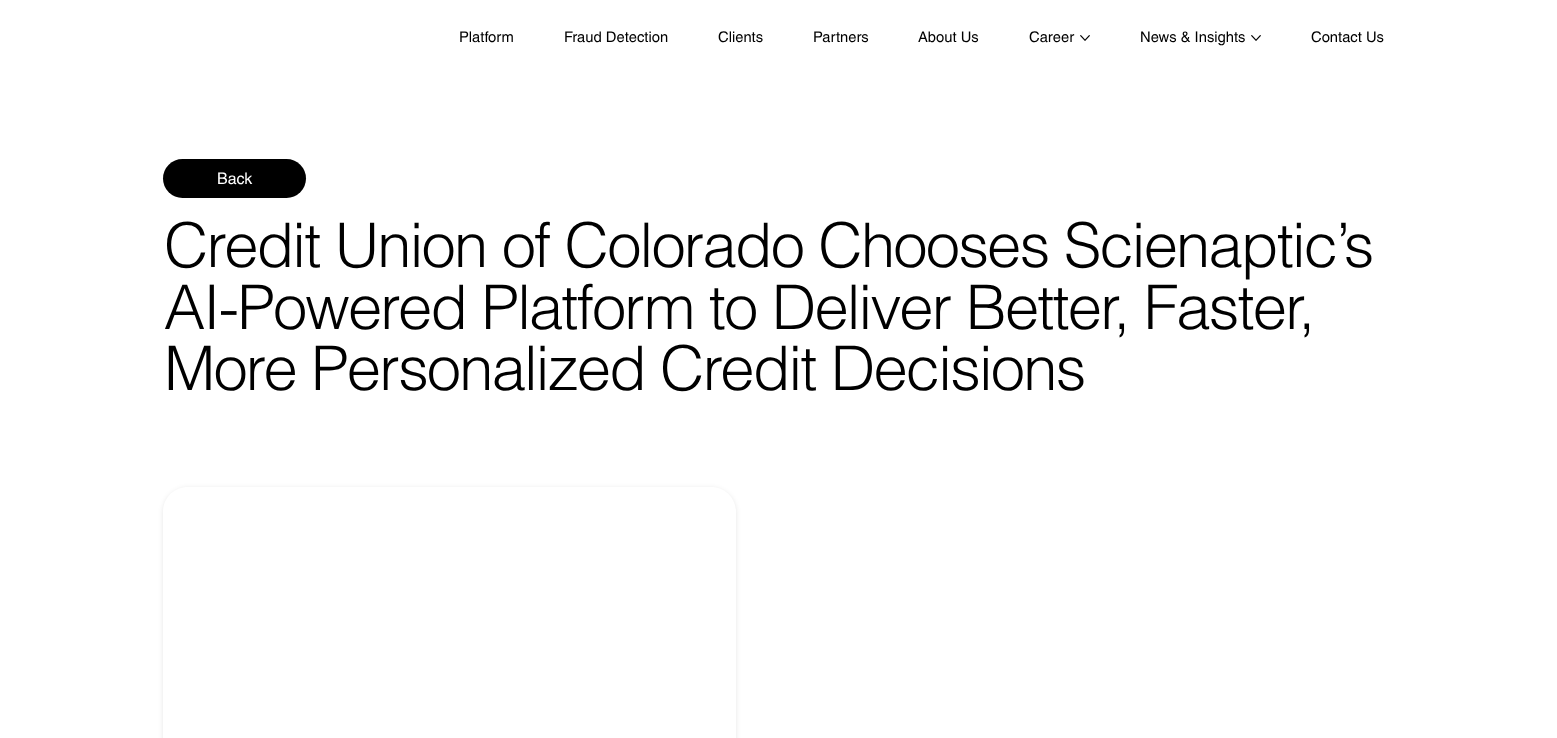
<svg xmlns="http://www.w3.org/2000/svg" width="1557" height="738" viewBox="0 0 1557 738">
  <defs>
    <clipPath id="clip1"><path d="M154 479H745V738H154ZM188 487H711C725 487 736 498 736 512V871C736 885 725 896 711 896H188C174 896 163 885 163 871V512C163 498 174 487 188 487Z" clip-rule="evenodd"/></clipPath>
  </defs>
  <rect width="100%" height="100%" fill="rgb(255,255,255)"/>
  <g font-family="helvetica" font-size="14.75" fill="rgb(0,0,0)">
    <text x="459" y="42">Platform</text>
    <text x="564" y="42">Fraud Detection</text>
    <text x="718" y="42">Clients</text>
    <text x="813" y="42">Partners</text>
    <text x="918" y="42">About Us</text>
    <text x="1029" y="42">Career</text>
  </g>
  <image x="1080" y="35" width="10" height="6" href="pic1.png"/>
  <text x="1140" y="42" font-family="helvetica" font-size="14.75" fill="rgb(0,0,0)">News &amp; Insights</text>
  <image x="1251" y="35" width="10" height="6" href="pic1.png"/>
  <text x="1311" y="42" font-family="helvetica" font-size="14.75" fill="rgb(0,0,0)">Contact Us</text>
  <rect x="163" y="159" width="143" height="39" rx="19.5" fill="rgb(0,0,0)"/>
  <text x="217" y="184" font-family="helvetica" font-size="16" fill="rgb(255,255,255)">Back</text>
  <g font-family="helvetica" font-size="61.6" font-weight="300" letter-spacing="-1.85" fill="rgb(0,0,0)">
    <text>
      <tspan x="164" y="267">Credit Union of Colorado Chooses Scienaptic’s</tspan>
      <tspan x="164" y="329">AI-Powered Platform to Deliver Better, Faster,</tspan>
      <tspan x="164" y="390">More Personalized Credit Decisions</tspan>
    </text>
  </g>
  <g clip-path="url(#clip1)">
    <rect x="163" y="488" width="573" height="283" rx="25" fill="rgba(0,0,0,0.1)" filter="blur(2.5px)"/>
  </g>
</svg>
